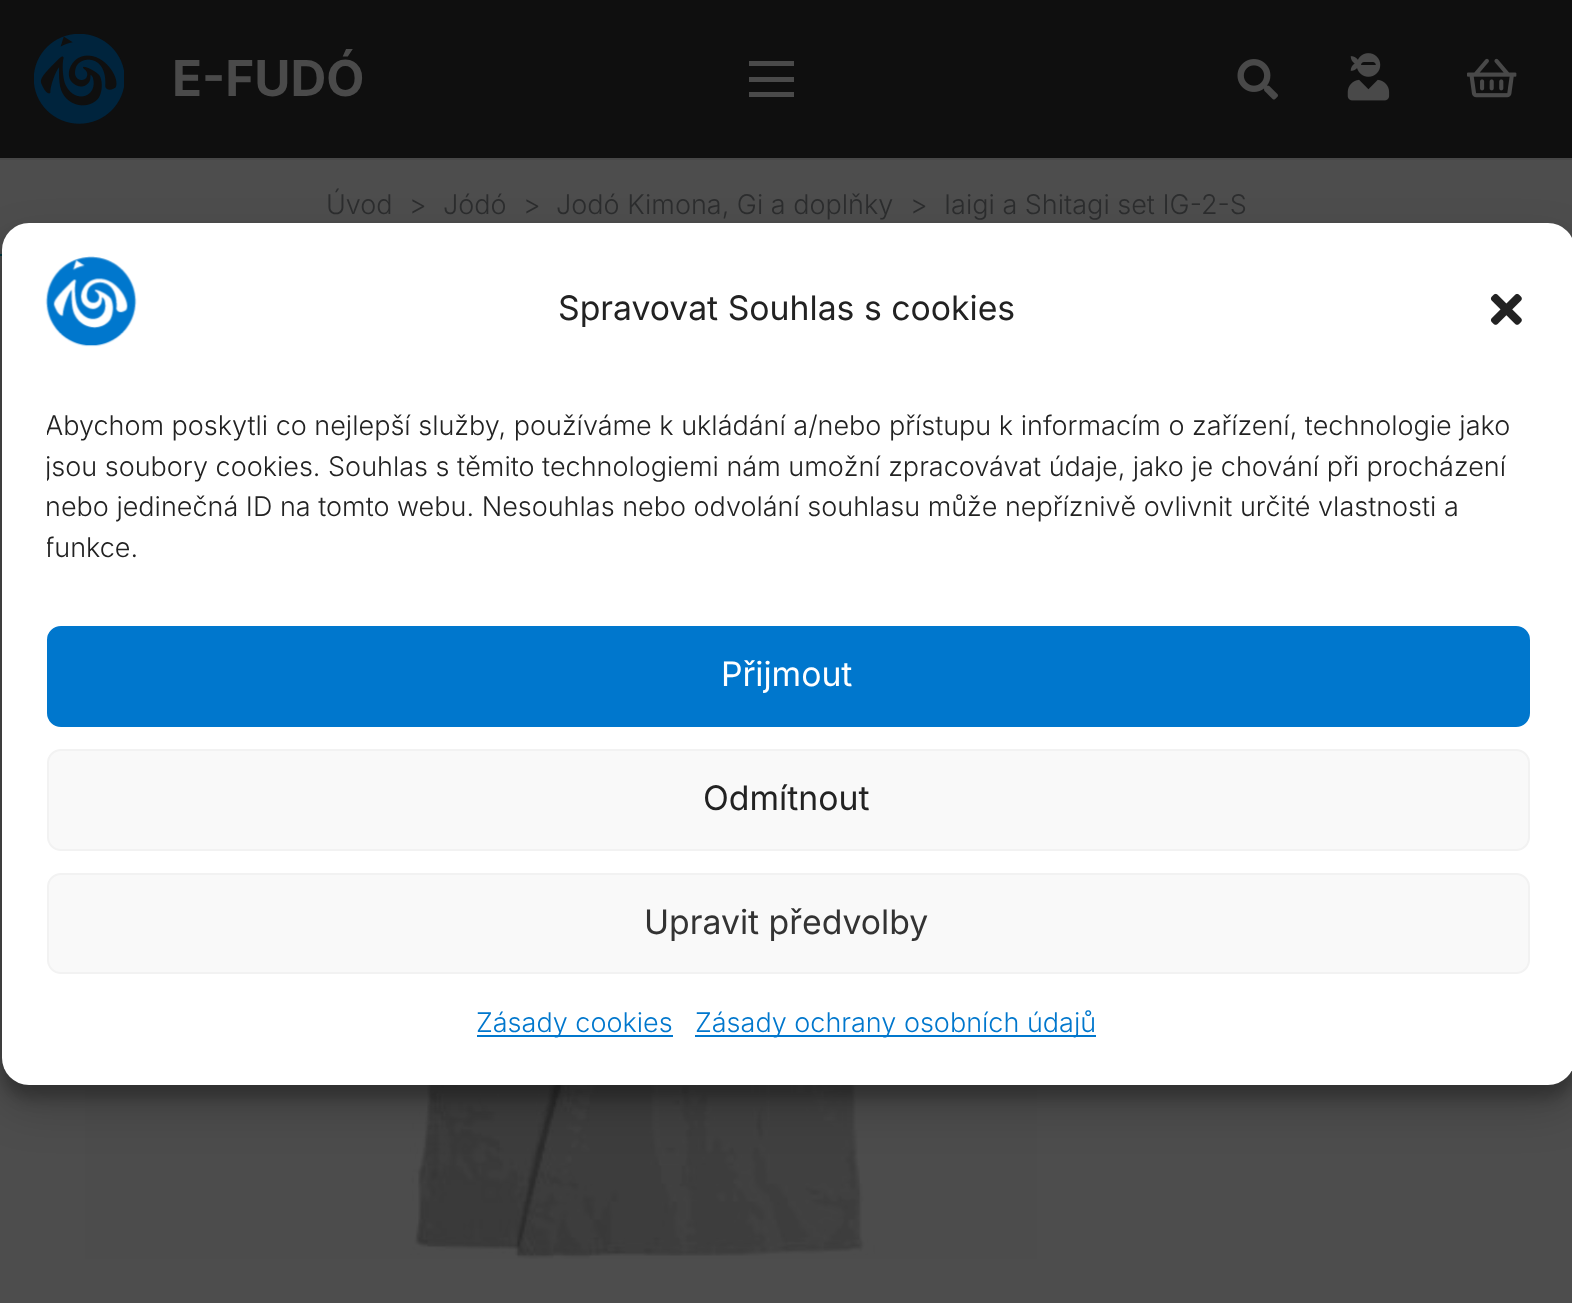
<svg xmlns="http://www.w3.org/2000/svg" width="1572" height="1303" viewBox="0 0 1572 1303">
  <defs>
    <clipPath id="clip1"><rect x="47" y="407" width="1483" height="174"/></clipPath>
  </defs>
  <rect width="100%" height="100%" fill="rgb(77,77,77)"/>
  <path d="M0 158V160H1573V2V158Z" fill="rgb(71,71,71)"/>
  <rect x="0" y="0" width="1572" height="158" fill="rgb(15,15,15)"/>
  <image x="34" y="34" width="90" height="90" href="pic1.png"/>
  <text x="172" y="96" font-family="Inter" font-size="49.5" font-weight="bold" fill="rgb(74,74,74)">E-FUDÓ</text>
  <rect x="749" y="77" width="45" height="5" fill="rgb(74,74,74)"/>
  <rect x="749" y="61" width="45" height="5" fill="rgb(74,74,74)"/>
  <rect x="749" y="92" width="45" height="5" fill="rgb(74,74,74)"/>
  <image x="1237" y="59" width="41" height="41" href="pic2.png"/>
  <image x="1347" y="53" width="43" height="48" href="pic3.png"/>
  <image x="1467" y="58" width="50" height="40" href="pic4.png"/>
  <rect x="0" y="254" width="2" height="2" fill="rgb(0,56,64)"/>
  <g font-family="Inter" font-size="27" font-weight="300" fill="rgb(44,45,46)">
    <text x="326" y="214">Úvod</text>
    <text x="409" y="214">&gt;</text>
    <text x="443" y="214">Jódó</text>
    <text x="523" y="214">&gt;</text>
    <text x="556" y="214">Jodó Kimona, Gi a doplňky</text>
    <text x="910" y="214">&gt;</text>
    <text x="944" y="214">Iaigi a Shitagi set IG-2-S</text>
  </g>
  <image x="85" y="1085" width="952" height="174" href="pic5.png"/>
  <rect x="2" y="236" width="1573" height="862" rx="27" fill="rgba(0,0,0,0.23)" filter="blur(7px)"/>
  <rect x="2" y="245" width="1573" height="862" rx="27" fill="rgba(0,0,0,0.19)" filter="blur(22.5px)"/>
  <rect x="2" y="223" width="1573" height="862" rx="27" fill="rgb(255,255,255)"/>
  <image x="45" y="256" width="92" height="91" href="pic6.png"/>
  <text x="558" y="320" font-family="Inter" font-size="33.75" fill="rgb(34,34,34)">Spravovat Souhlas s cookies</text>
  <image x="1490" y="293" width="32" height="32" href="pic7.png"/>
  <g clip-path="url(#clip1)">
    <g font-family="Inter" font-size="27" font-weight="300" fill="rgb(34,34,34)">
      <text>
        <tspan x="45" y="435">Abychom poskytli co nejlepší služby, používáme k ukládání a/nebo přístupu k informacím o zařízení, technologie jako</tspan>
        <tspan x="45" y="476">jsou soubory cookies. Souhlas s těmito technologiemi nám umožní zpracovávat údaje, jako je chování při procházení</tspan>
      </text>
    </g>
  </g>
  <text x="45" y="516" font-family="Inter" font-size="27" font-weight="300" fill="rgb(34,34,34)">nebo jedinečná ID na tomto webu. Nesouhlas nebo odvolání souhlasu může nepříznivě ovlivnit určité vlastnosti a</text>
  <g clip-path="url(#clip1)">
    <text x="45" y="557" font-family="Inter" font-size="27" font-weight="300" fill="rgb(34,34,34)">funkce.</text>
  </g>
  <rect x="48" y="627" width="1481" height="99" rx="13" fill="rgb(0,119,205)" stroke="rgb(0,119,205)" stroke-width="2"/>
  <text x="721" y="686" font-family="Inter" font-size="33.75" fill="rgb(255,255,255)">Přijmout</text>
  <rect x="48" y="750" width="1481" height="100" rx="13" fill="rgb(249,249,249)" stroke="rgb(242,242,242)" stroke-width="2"/>
  <text x="703" y="810" font-family="Inter" font-size="33.75" fill="rgb(34,34,34)">Odmítnout</text>
  <rect x="48" y="874" width="1481" height="99" rx="13" fill="rgb(249,249,249)" stroke="rgb(242,242,242)" stroke-width="2"/>
  <text x="644" y="934" font-family="Inter" font-size="33.75" fill="rgb(51,51,51)">Upravit předvolby</text>
  <rect x="477" y="1035" width="196" height="2" fill="rgb(0,119,205)"/>
  <text x="476" y="1032" font-family="Inter" font-size="27" font-weight="300" fill="rgb(0,119,205)">Zásady cookies</text>
  <rect x="695" y="1035" width="401" height="2" fill="rgb(0,119,205)"/>
  <text x="695" y="1032" font-family="Inter" font-size="27" font-weight="300" fill="rgb(0,119,205)">Zásady ochrany osobních údajů</text>
</svg>
